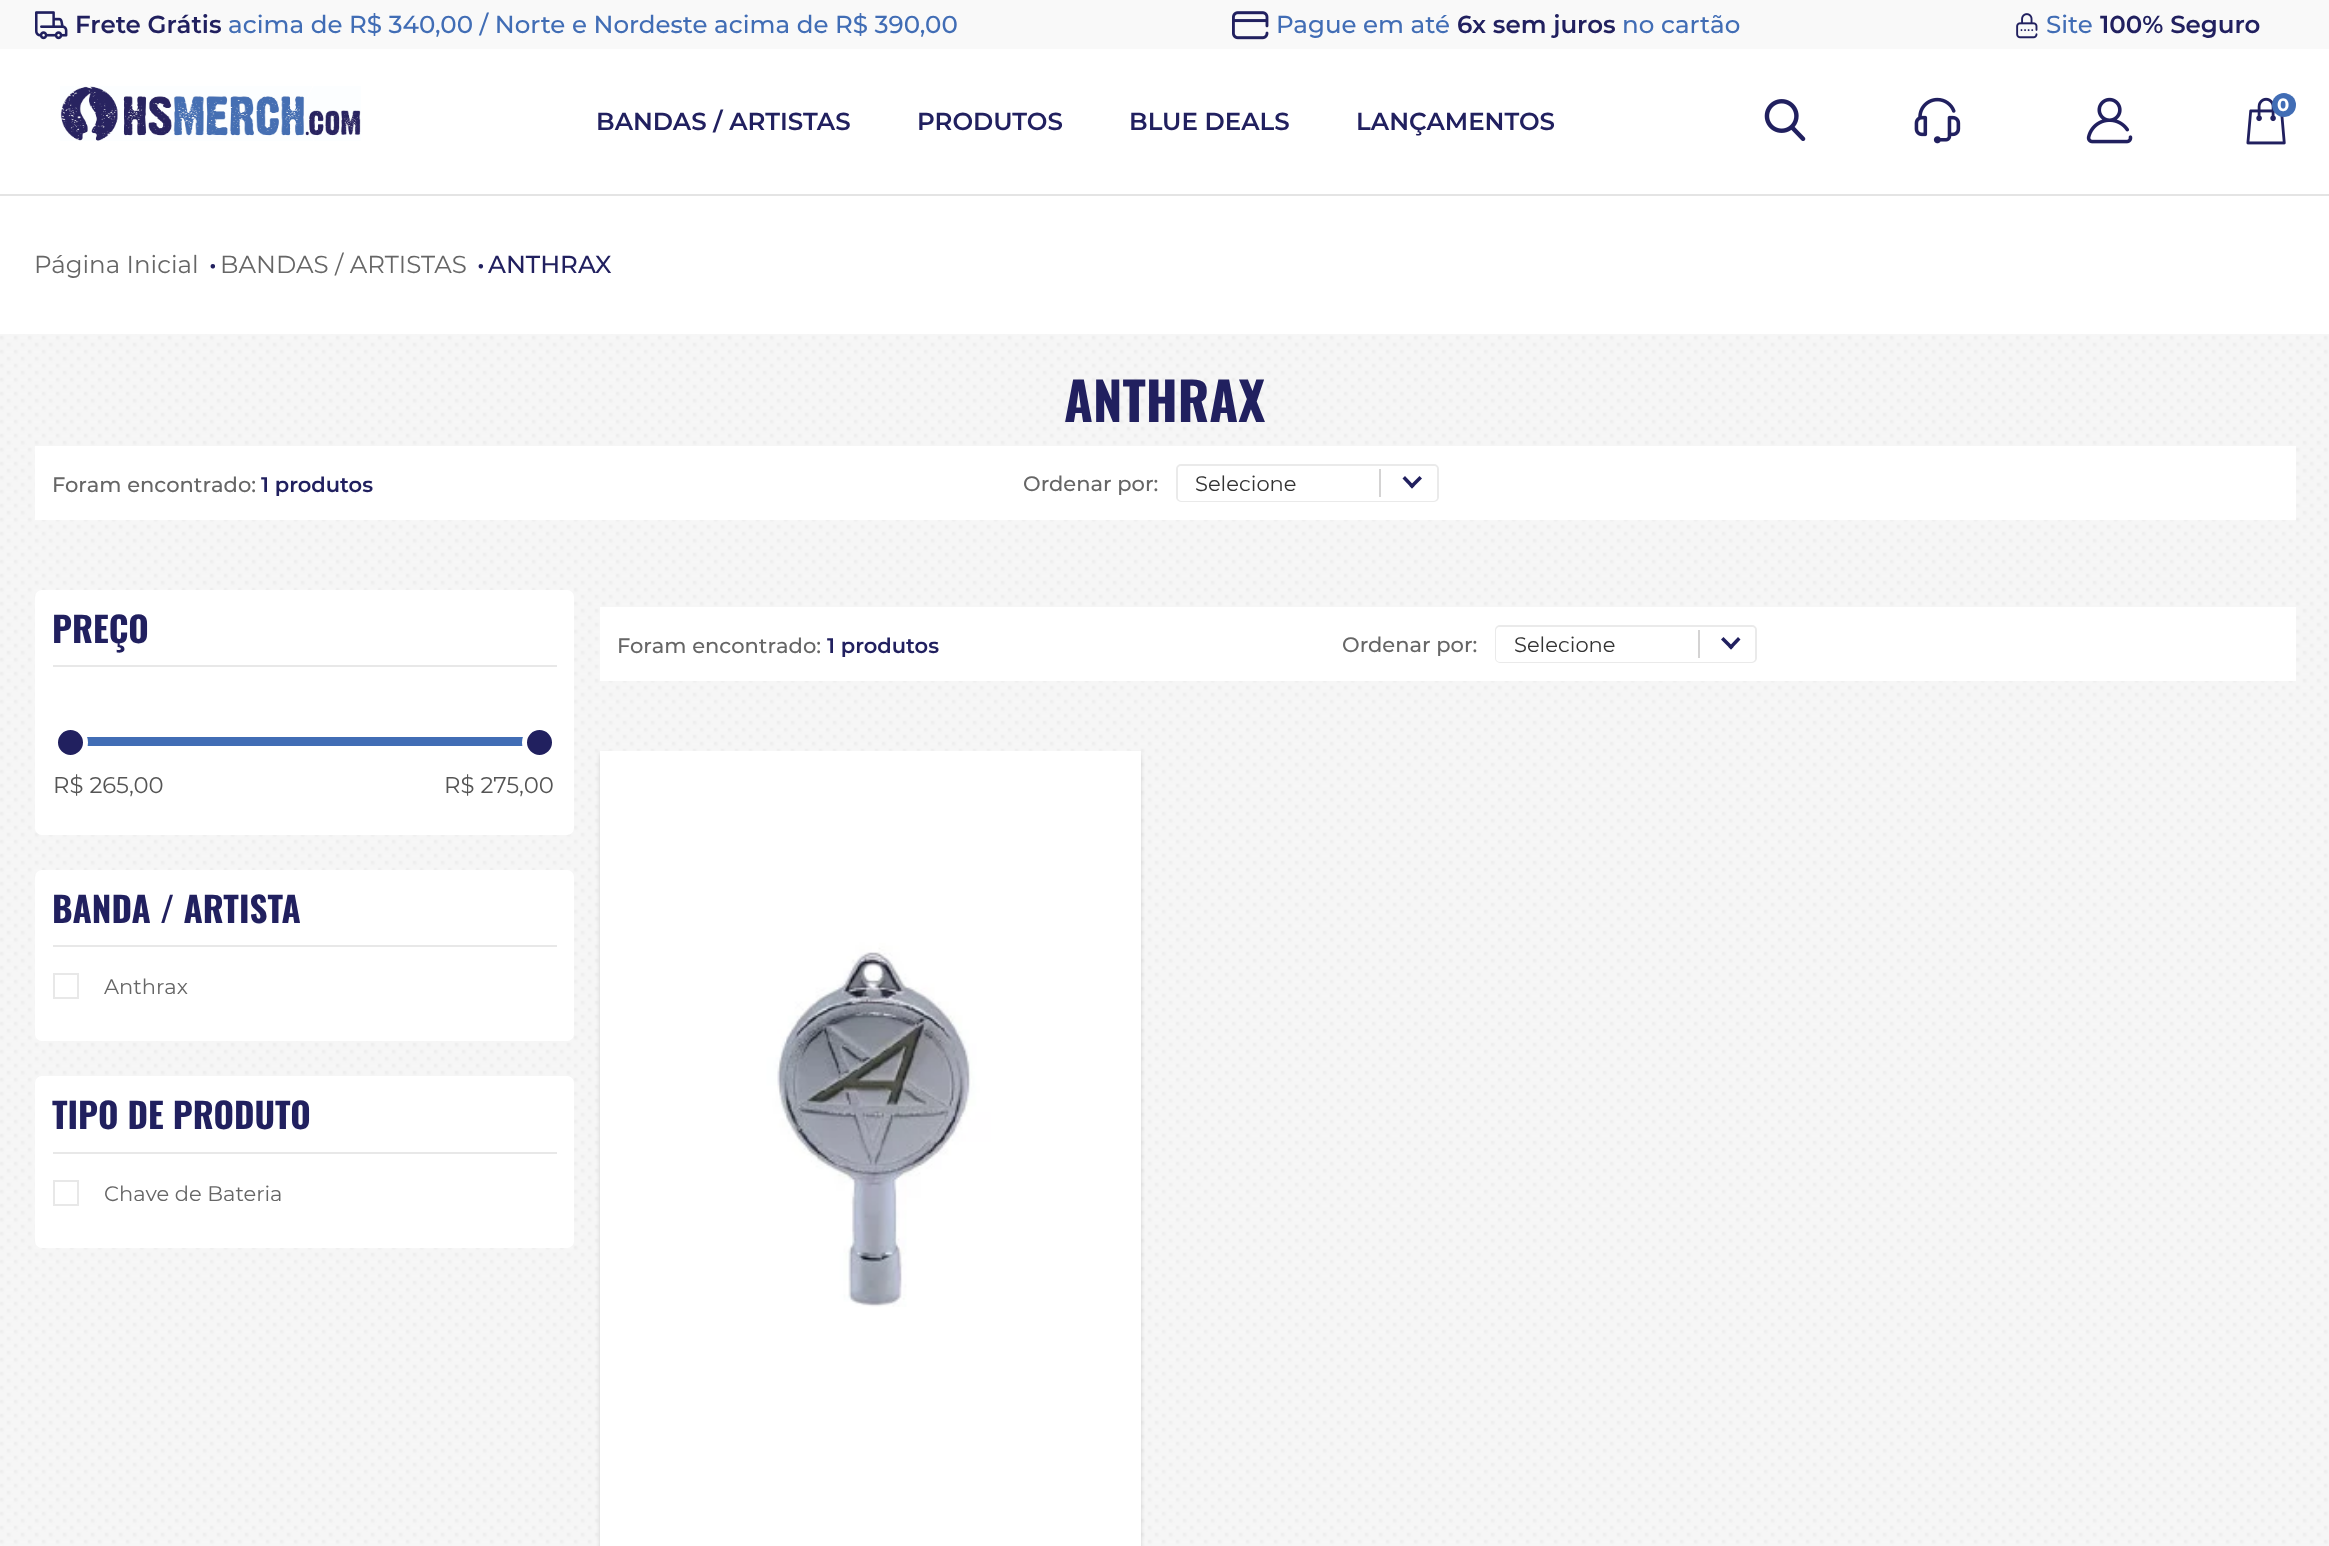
<svg xmlns="http://www.w3.org/2000/svg" width="2329" height="1546" viewBox="0 0 2329 1546">
  <rect width="100%" height="100%" fill="rgb(255,255,255)"/>
  <image x="0" y="334" width="2329" height="1212" href="pic1.png"/>
  <rect x="0" y="0" width="2329" height="49" fill="rgb(249,249,249)"/>
  <image x="35" y="11" width="33" height="29" href="pic2.png"/>
  <text x="75" y="33" font-family="Montserrat" font-size="24.5" font-weight="600" fill="rgb(33,32,95)">Frete Grátis</text>
  <text x="228" y="33" font-family="Montserrat" font-size="24.5" font-weight="500" fill="rgb(65,109,181)">acima de R$ 340,00 / Norte e Nordeste acima de R$ 390,00</text>
  <image x="1232" y="11" width="37" height="29" href="pic3.png"/>
  <text x="1276" y="33" font-family="Montserrat" font-size="24.5" font-weight="500" fill="rgb(65,109,181)">Pague em até</text>
  <text x="1457" y="33" font-family="Montserrat" font-size="24.5" font-weight="600" fill="rgb(33,32,95)">6x sem juros</text>
  <text x="1622" y="33" font-family="Montserrat" font-size="24.5" font-weight="500" fill="rgb(65,109,181)">no cartão</text>
  <image x="2016" y="13" width="22" height="26" href="pic4.png"/>
  <text x="2046" y="33" font-family="Montserrat" font-size="24.5" font-weight="500" fill="rgb(65,109,181)">Site</text>
  <text x="2100" y="33" font-family="Montserrat" font-size="24.5" font-weight="600" fill="rgb(33,32,95)">100% Seguro</text>
  <rect x="0" y="194" width="2329" height="2" fill="rgb(228,228,228)"/>
  <image x="60" y="86" width="301" height="55" href="pic5.png"/>
  <g font-family="Montserrat" font-size="24.5" font-weight="600" fill="rgb(33,32,95)">
    <text x="596" y="130">BANDAS / ARTISTAS</text>
    <text x="917" y="130">PRODUTOS</text>
    <text x="1129" y="130">BLUE DEALS</text>
    <text x="1356" y="130">LANÇAMENTOS</text>
  </g>
  <image x="1764" y="99" width="42" height="42" href="pic6.png"/>
  <image x="1914" y="97" width="47" height="47" href="pic7.png"/>
  <image x="2086" y="97" width="47" height="47" href="pic8.png"/>
  <image x="2246" y="97" width="40" height="48" href="pic9.png"/>
  <circle cx="2284" cy="105" r="12" fill="rgb(65,109,181)"/>
  <text x="2277" y="111" font-family="Montserrat" font-size="18" font-weight="bold" fill="rgb(255,255,255)">0</text>
  <text x="34" y="273" font-family="Montserrat" font-size="24.5" fill="rgb(102,102,102)">Página Inicial</text>
  <text x="209" y="273" font-family="Montserrat" font-size="24.5" font-weight="500" fill="rgb(33,32,95)">•</text>
  <text x="220" y="273" font-family="Montserrat" font-size="24.5" fill="rgb(102,102,102)">BANDAS / ARTISTAS</text>
  <g font-family="Montserrat" font-size="24.5" font-weight="500" fill="rgb(33,32,95)">
    <text x="477" y="273">•</text>
    <text x="488" y="273">ANTHRAX</text>
  </g>
  <text x="1064" y="422" font-family="Oswald" font-size="52.5" font-weight="bold" fill="rgb(33,32,95)">ANTHRAX</text>
  <rect x="35" y="446" width="2261" height="74" fill="rgb(255,255,255)"/>
  <text x="52" y="492" font-family="Montserrat" font-size="21" font-weight="500" fill="rgb(102,102,102)">Foram encontrado:</text>
  <text x="261" y="492" font-family="Montserrat" font-size="21" font-weight="600" fill="rgb(33,32,95)">1 produtos</text>
  <text x="1023" y="491" font-family="Montserrat" font-size="21" font-weight="500" fill="rgb(102,102,102)">Ordenar por:</text>
  <rect x="1177" y="465" width="261" height="36" rx="4" fill="none" stroke="rgb(234,234,234)" stroke-width="2"/>
  <rect x="1178" y="466" width="259" height="35" rx="4" fill="rgb(255,255,255)"/>
  <text x="1195" y="491" font-family="Montserrat" font-size="21" fill="rgb(51,51,51)">Selecione</text>
  <rect x="1379" y="469" width="2" height="28" fill="rgb(212,211,211)"/>
  <path d="M1412 488.5L1402.5 478.5L1405 476L1414.5 486Z" fill="rgb(33,32,95)"/>
  <path d="M1412 488.5L1409.5 486L1419.5 476L1422 478.5Z" fill="rgb(33,32,95)"/>
  <rect x="35" y="590" width="539" height="245" rx="7" fill="rgb(255,255,255)"/>
  <rect x="53" y="665" width="504" height="2" fill="rgb(232,232,232)"/>
  <text x="52" y="643" font-family="Oswald" font-size="35" font-weight="bold" fill="rgb(33,32,95)">PREÇO</text>
  <rect x="87" y="737" width="436" height="9" fill="rgb(65,109,181)"/>
  <circle cx="70.5" cy="742.5" r="15" fill="rgb(33,32,95)" stroke="rgb(255,255,255)" stroke-width="5"/>
  <circle cx="539.5" cy="742.5" r="15" fill="rgb(33,32,95)" stroke="rgb(255,255,255)" stroke-width="5"/>
  <g font-family="Montserrat" font-size="22.75" fill="rgb(85,85,85)">
    <text x="53" y="793">R$ 265,00</text>
    <text x="444" y="793">R$ 275,00</text>
  </g>
  <rect x="35" y="870" width="539" height="171" rx="7" fill="rgb(255,255,255)"/>
  <rect x="53" y="945" width="504" height="2" fill="rgb(232,232,232)"/>
  <text x="52" y="923" font-family="Oswald" font-size="35" font-weight="bold" fill="rgb(33,32,95)">BANDA / ARTISTA</text>
  <rect x="54" y="974" width="24" height="24" fill="none" stroke="rgb(232,232,232)" stroke-width="2"/>
  <text x="104" y="994" font-family="Montserrat" font-size="21" fill="rgb(102,102,102)">Anthrax</text>
  <rect x="35" y="1076" width="539" height="172" rx="7" fill="rgb(255,255,255)"/>
  <rect x="53" y="1152" width="504" height="2" fill="rgb(232,232,232)"/>
  <text x="52" y="1129" font-family="Oswald" font-size="35" font-weight="bold" fill="rgb(33,32,95)">TIPO DE PRODUTO</text>
  <rect x="54" y="1181" width="24" height="24" fill="none" stroke="rgb(232,232,232)" stroke-width="2"/>
  <text x="104" y="1201" font-family="Montserrat" font-size="21" fill="rgb(102,102,102)">Chave de Bateria</text>
  <rect x="600" y="607" width="1696" height="74" fill="rgb(255,255,255)"/>
  <text x="617" y="653" font-family="Montserrat" font-size="21" font-weight="500" fill="rgb(102,102,102)">Foram encontrado:</text>
  <text x="827" y="653" font-family="Montserrat" font-size="21" font-weight="600" fill="rgb(33,32,95)">1 produtos</text>
  <text x="1342" y="652" font-family="Montserrat" font-size="21" font-weight="500" fill="rgb(102,102,102)">Ordenar por:</text>
  <rect x="1496" y="626" width="260" height="36" rx="4" fill="none" stroke="rgb(234,234,234)" stroke-width="2"/>
  <rect x="1496" y="627" width="259" height="35" rx="4" fill="rgb(255,255,255)"/>
  <text x="1514" y="652" font-family="Montserrat" font-size="21" fill="rgb(51,51,51)">Selecione</text>
  <rect x="1698" y="630" width="2" height="28" fill="rgb(212,211,211)"/>
  <path d="M1731 649.5L1721 639.5L1723.5 637L1733.5 647Z" fill="rgb(33,32,95)"/>
  <path d="M1731 649.5L1728.5 647L1738 637L1740.5 639.5Z" fill="rgb(33,32,95)"/>
  <rect x="600" y="754" width="541" height="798" fill="rgba(0,0,0,0.15)" filter="blur(2px)"/>
  <rect x="600" y="751" width="541" height="795" fill="rgb(255,255,255)"/>
  <image x="609" y="750" width="521" height="557" href="pic10.png"/>
</svg>
